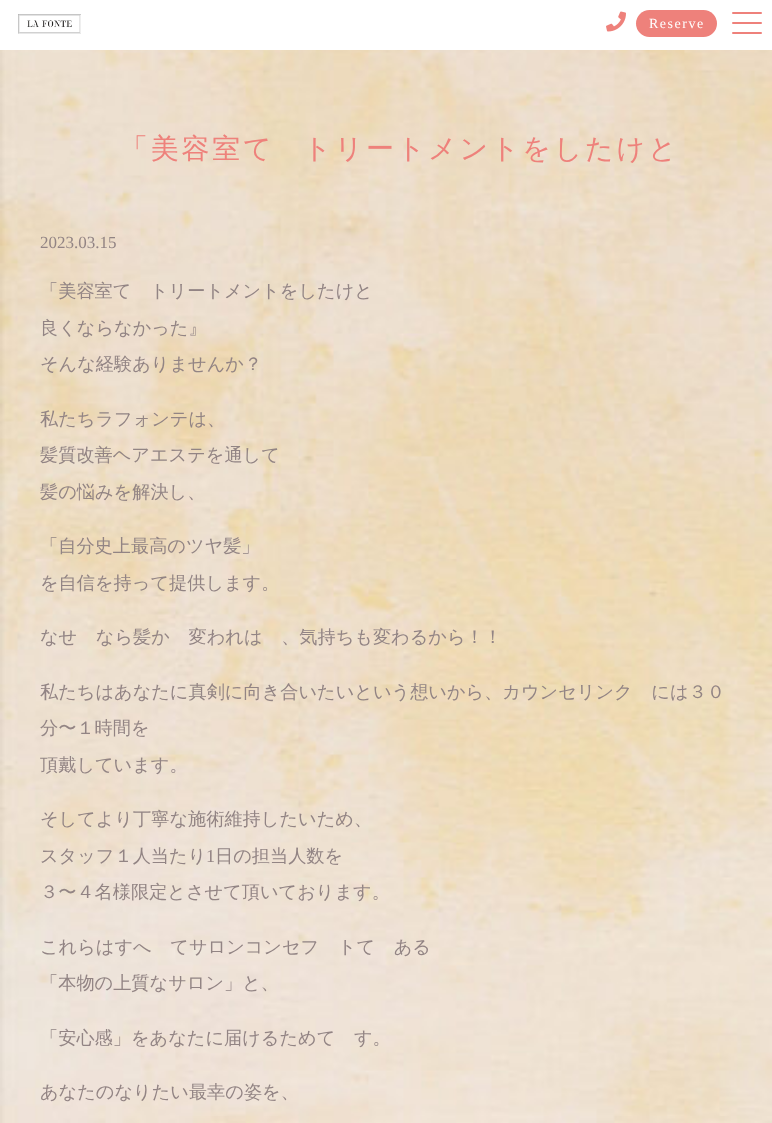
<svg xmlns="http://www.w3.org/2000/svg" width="772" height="1123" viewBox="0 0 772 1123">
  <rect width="100%" height="100%" fill="rgb(255,255,255)"/>
  <image x="0" y="50" width="772" height="1073" href="pic1.png"/>
  <image x="18" y="14" width="63" height="20" href="pic2.png"/>
  <image x="606" y="11" width="20" height="21" href="pic3.png"/>
  <rect x="636" y="10" width="81" height="27" rx="13.5" fill="rgb(238,129,123)"/>
  <text x="649" y="28" font-family="Liberation Serif" font-size="14" letter-spacing="1.5" fill="rgb(255,255,255)">Reserve</text>
  <rect x="732" y="12" width="30" height="2" rx="1" fill="rgb(238,129,123)"/>
  <rect x="732" y="22" width="30" height="2" rx="1" fill="rgb(238,129,123)"/>
  <rect x="732" y="32" width="30" height="2" rx="1" fill="rgb(238,129,123)"/>
  <text x="120" y="158" font-family="WenQuanYi Zen Hei" font-size="28" font-weight="500" letter-spacing="2.75" fill="rgb(238,129,123)">「美容室でトリートメントをしたけど</text>
  <text x="40" y="248" font-family="Liberation Serif" font-size="17" fill="rgb(146,132,132)">2023.03.15</text>
  <g font-family="WenQuanYi Zen Hei" font-size="18.2" font-weight="500" fill="rgb(146,132,132)">
    <text x="40" y="297">「美容室でトリートメントをしたけど</text>
    <text>
      <tspan x="40" y="334">良くならなかった』</tspan>
      <tspan x="40" y="370">そんな経験ありませんか？</tspan>
    </text>
    <text>
      <tspan x="40" y="425">私たちラフォンテは、</tspan>
      <tspan x="40" y="461">髪質改善ヘアエステを通して</tspan>
    </text>
    <text x="40" y="498">髪の悩みを解決し、</text>
    <text x="40" y="552">「自分史上最高のツヤ髪」</text>
    <text x="40" y="589">を自信を持って提供します。</text>
    <text x="40" y="643">なぜなら髪が変われば、気持ちも変わるから！！</text>
    <text>
      <tspan x="40" y="698">私たちはあなたに真剣に向き合いたいという想いから、カウンセリングには３０</tspan>
      <tspan x="40" y="734">分〜１時間を</tspan>
    </text>
    <text x="40" y="771">頂戴しています。</text>
    <text x="40" y="825">そしてより丁寧な施術維持したいため、</text>
    <text x="40" y="862">スタッフ１人当たり</text>
  </g>
  <text x="206" y="862" font-family="Liberation Serif" font-size="18.2" fill="rgb(146,132,132)">1</text>
  <g font-family="WenQuanYi Zen Hei" font-size="18.2" font-weight="500" fill="rgb(146,132,132)">
    <text x="215" y="862">日の担当人数を</text>
    <text x="40" y="898">３〜４名様限定とさせて頂いております。</text>
    <text>
      <tspan x="40" y="953">これらはすべてサロンコンセプトである</tspan>
      <tspan x="40" y="989">「本物の上質なサロン」と、</tspan>
    </text>
    <text x="40" y="1044">「安心感」をあなたに届けるためです。</text>
    <text x="40" y="1098">あなたのなりたい最幸の姿を、</text>
  </g>
</svg>
